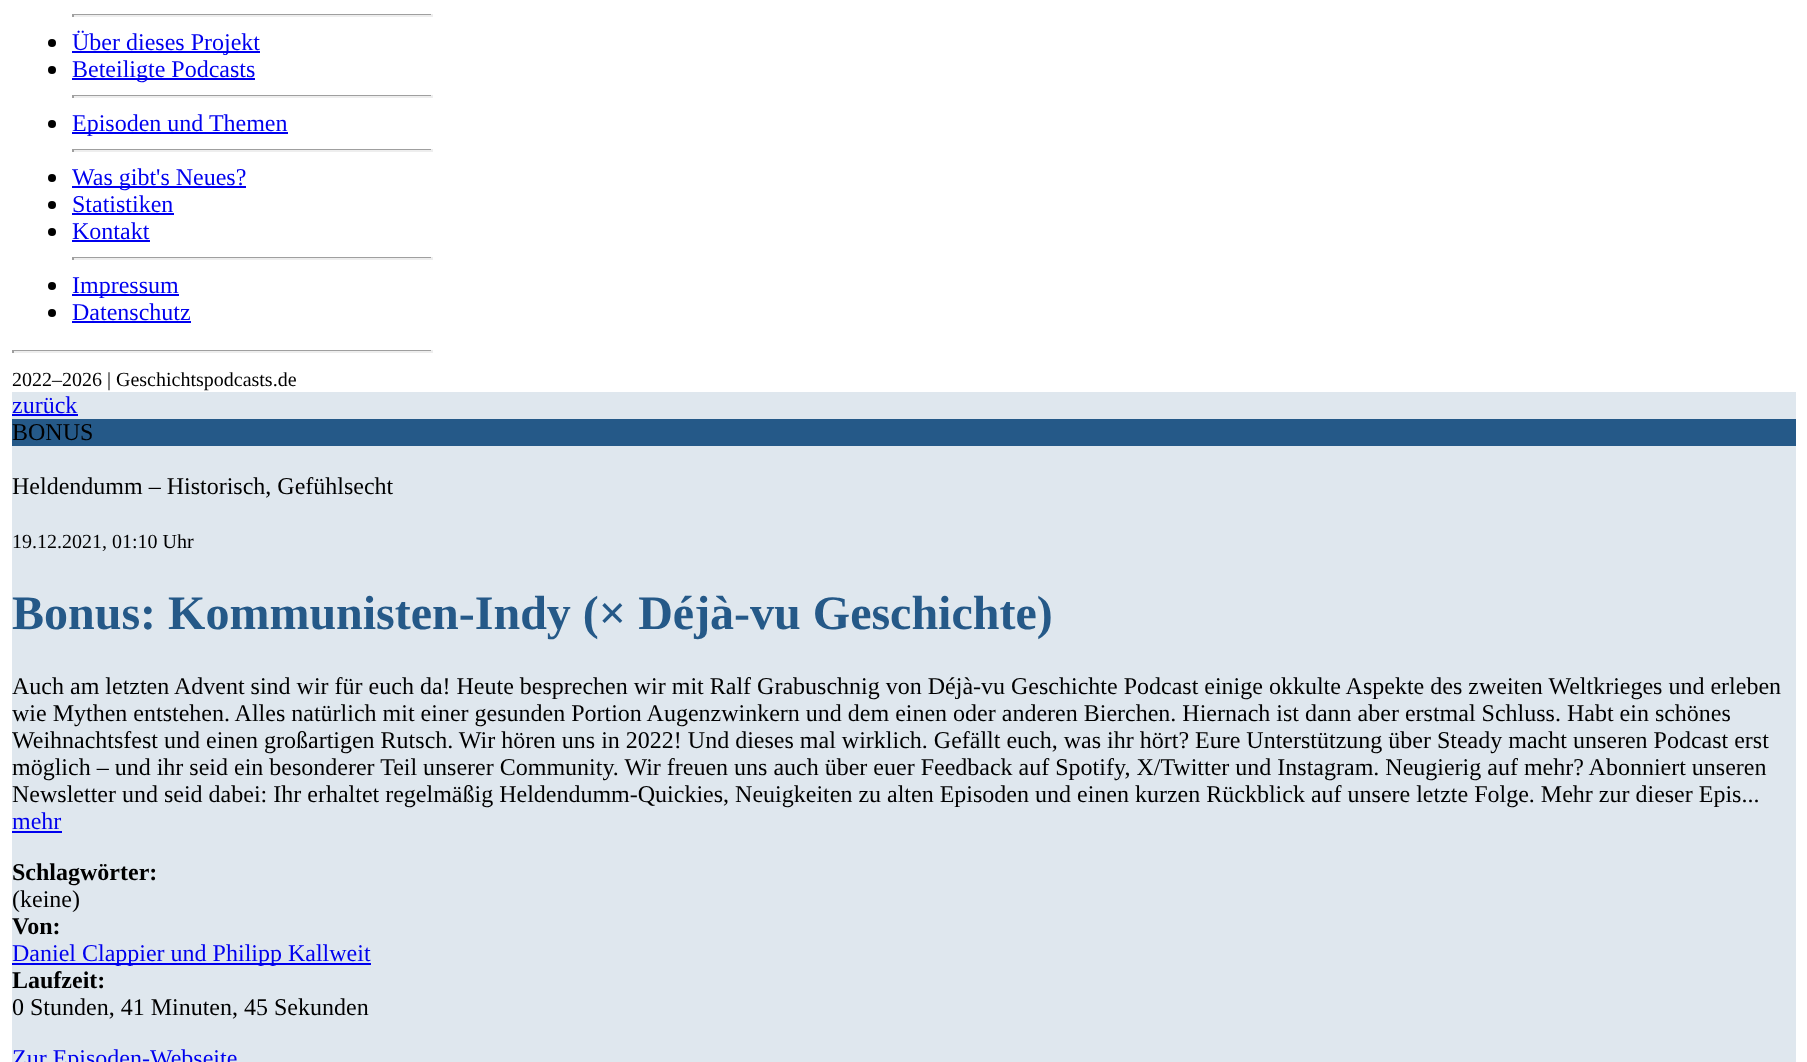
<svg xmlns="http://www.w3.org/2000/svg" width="1807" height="1062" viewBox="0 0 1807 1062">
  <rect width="100%" height="100%" fill="rgb(255,255,255)"/>
  <rect x="72" y="14" width="360" height="1" fill="rgb(159,159,159)"/>
  <rect x="431" y="14" width="2" height="3" fill="rgb(238,238,238)"/>
  <rect x="72" y="15" width="360" height="2" fill="rgb(238,238,238)"/>
  <rect x="72" y="14" width="2" height="3" fill="rgb(159,159,159)"/>
  <circle cx="52" cy="43" r="4" fill="rgb(0,0,0)"/>
  <rect x="72" y="51" width="188" height="2" fill="rgb(0,0,238)"/>
  <text x="72" y="50" font-family="Liberation Serif" font-size="24" fill="rgb(0,0,238)">Über dieses Projekt</text>
  <circle cx="52" cy="70" r="4" fill="rgb(0,0,0)"/>
  <rect x="72" y="78" width="183" height="2" fill="rgb(0,0,238)"/>
  <text x="72" y="77" font-family="Liberation Serif" font-size="24" fill="rgb(0,0,238)">Beteiligte Podcasts</text>
  <rect x="72" y="95" width="360" height="1" fill="rgb(159,159,159)"/>
  <rect x="431" y="95" width="2" height="3" fill="rgb(238,238,238)"/>
  <rect x="72" y="96" width="360" height="2" fill="rgb(238,238,238)"/>
  <rect x="72" y="95" width="2" height="3" fill="rgb(159,159,159)"/>
  <circle cx="52" cy="124" r="4" fill="rgb(0,0,0)"/>
  <rect x="72" y="132" width="216" height="2" fill="rgb(0,0,238)"/>
  <text x="72" y="131" font-family="Liberation Serif" font-size="24" fill="rgb(0,0,238)">Episoden und Themen</text>
  <rect x="72" y="149" width="360" height="1" fill="rgb(159,159,159)"/>
  <rect x="431" y="149" width="2" height="3" fill="rgb(238,238,238)"/>
  <rect x="72" y="150" width="360" height="2" fill="rgb(238,238,238)"/>
  <rect x="72" y="149" width="2" height="3" fill="rgb(159,159,159)"/>
  <circle cx="52" cy="178" r="4" fill="rgb(0,0,0)"/>
  <rect x="72" y="186" width="174" height="2" fill="rgb(0,0,238)"/>
  <text x="72" y="185" font-family="Liberation Serif" font-size="24" fill="rgb(0,0,238)">Was gibt's Neues?</text>
  <circle cx="52" cy="205" r="4" fill="rgb(0,0,0)"/>
  <text x="72" y="212" font-family="Liberation Serif" font-size="24" fill="rgb(0,0,238)">Statistiken</text>
  <rect x="72" y="213" width="102" height="2" fill="rgb(0,0,238)"/>
  <circle cx="52" cy="232" r="4" fill="rgb(0,0,0)"/>
  <text x="72" y="239" font-family="Liberation Serif" font-size="24" fill="rgb(0,0,238)">Kontakt</text>
  <rect x="72" y="240" width="78" height="2" fill="rgb(0,0,238)"/>
  <rect x="72" y="257" width="360" height="1" fill="rgb(159,159,159)"/>
  <rect x="431" y="257" width="2" height="3" fill="rgb(238,238,238)"/>
  <rect x="72" y="258" width="360" height="2" fill="rgb(238,238,238)"/>
  <rect x="72" y="257" width="2" height="3" fill="rgb(159,159,159)"/>
  <circle cx="52" cy="286" r="4" fill="rgb(0,0,0)"/>
  <rect x="72" y="294" width="107" height="2" fill="rgb(0,0,238)"/>
  <text x="72" y="293" font-family="Liberation Serif" font-size="24" fill="rgb(0,0,238)">Impressum</text>
  <circle cx="52" cy="313" r="4" fill="rgb(0,0,0)"/>
  <text x="72" y="320" font-family="Liberation Serif" font-size="24" fill="rgb(0,0,238)">Datenschutz</text>
  <rect x="72" y="321" width="119" height="2" fill="rgb(0,0,238)"/>
  <rect x="12" y="350" width="420" height="1" fill="rgb(159,159,159)"/>
  <rect x="431" y="350" width="2" height="3" fill="rgb(238,238,238)"/>
  <rect x="12" y="351" width="420" height="2" fill="rgb(238,238,238)"/>
  <rect x="12" y="350" width="2" height="3" fill="rgb(159,159,159)"/>
  <text x="12" y="386" font-family="Liberation Serif" font-size="20" fill="rgb(0,0,0)">2022–2026 | Geschichtspodcasts.de</text>
  <rect x="12" y="392" width="1784" height="670" fill="rgb(223,231,238)"/>
  <text x="12" y="413" font-family="Liberation Serif" font-size="24" fill="rgb(0,0,238)">zurück</text>
  <rect x="12" y="414" width="66" height="2" fill="rgb(0,0,238)"/>
  <rect x="12" y="419" width="1784" height="27" fill="rgb(37,89,136)"/>
  <g font-family="Liberation Serif" font-size="24" fill="rgb(0,0,0)">
    <text x="12" y="440">BONUS</text>
    <text x="12" y="494">Heldendumm – Historisch, Gefühlsecht</text>
  </g>
  <text x="12" y="548" font-family="Liberation Serif" font-size="20" fill="rgb(0,0,0)">19.12.2021, 01:10 Uhr</text>
  <text x="12" y="629" font-family="Liberation Serif" font-size="48" font-weight="bold" fill="rgb(37,89,136)">Bonus: Kommunisten-Indy (× Déjà-vu Geschichte)</text>
  <g font-family="Liberation Serif" font-size="24" fill="rgb(0,0,0)">
    <text>
      <tspan x="12" y="694">Auch am letzten Advent sind wir für euch da! Heute besprechen wir mit Ralf Grabuschnig von Déjà-vu Geschichte Podcast einige okkulte Aspekte des zweiten Weltkrieges und erleben</tspan>
      <tspan x="12" y="721">wie Mythen entstehen. Alles natürlich mit einer gesunden Portion Augenzwinkern und dem einen oder anderen Bierchen. Hiernach ist dann aber erstmal Schluss. Habt ein schönes</tspan>
      <tspan x="12" y="748">Weihnachtsfest und einen großartigen Rutsch. Wir hören uns in 2022! Und dieses mal wirklich. Gefällt euch, was ihr hört? Eure Unterstützung über Steady macht unseren Podcast erst</tspan>
      <tspan x="12" y="775">möglich – und ihr seid ein besonderer Teil unserer Community. Wir freuen uns auch über euer Feedback auf Spotify, X/Twitter und Instagram. Neugierig auf mehr? Abonniert unseren</tspan>
      <tspan x="12" y="802">Newsletter und seid dabei: Ihr erhaltet regelmäßig Heldendumm-Quickies, Neuigkeiten zu alten Episoden und einen kurzen Rückblick auf unsere letzte Folge. Mehr zur dieser Epis...</tspan>
    </text>
  </g>
  <text x="12" y="829" font-family="Liberation Serif" font-size="24" fill="rgb(0,0,238)">mehr</text>
  <rect x="12" y="831" width="50" height="2" fill="rgb(0,0,238)"/>
  <text x="12" y="880" font-family="Liberation Serif" font-size="24" font-weight="bold" fill="rgb(0,0,0)">Schlagwörter:</text>
  <text x="12" y="907" font-family="Liberation Serif" font-size="24" fill="rgb(0,0,0)">(keine)</text>
  <text x="12" y="934" font-family="Liberation Serif" font-size="24" font-weight="bold" fill="rgb(0,0,0)">Von:</text>
  <rect x="12" y="963" width="359" height="2" fill="rgb(0,0,238)"/>
  <text x="12" y="961" font-family="Liberation Serif" font-size="24" fill="rgb(0,0,238)">Daniel Clappier und Philipp Kallweit</text>
  <text x="12" y="988" font-family="Liberation Serif" font-size="24" font-weight="bold" fill="rgb(0,0,0)">Laufzeit:</text>
  <text x="12" y="1015" font-family="Liberation Serif" font-size="24" fill="rgb(0,0,0)">0 Stunden, 41 Minuten, 45 Sekunden</text>
  <text x="12" y="1066" font-family="Liberation Serif" font-size="24" fill="rgb(0,0,238)">Zur Episoden-Webseite</text>
</svg>
